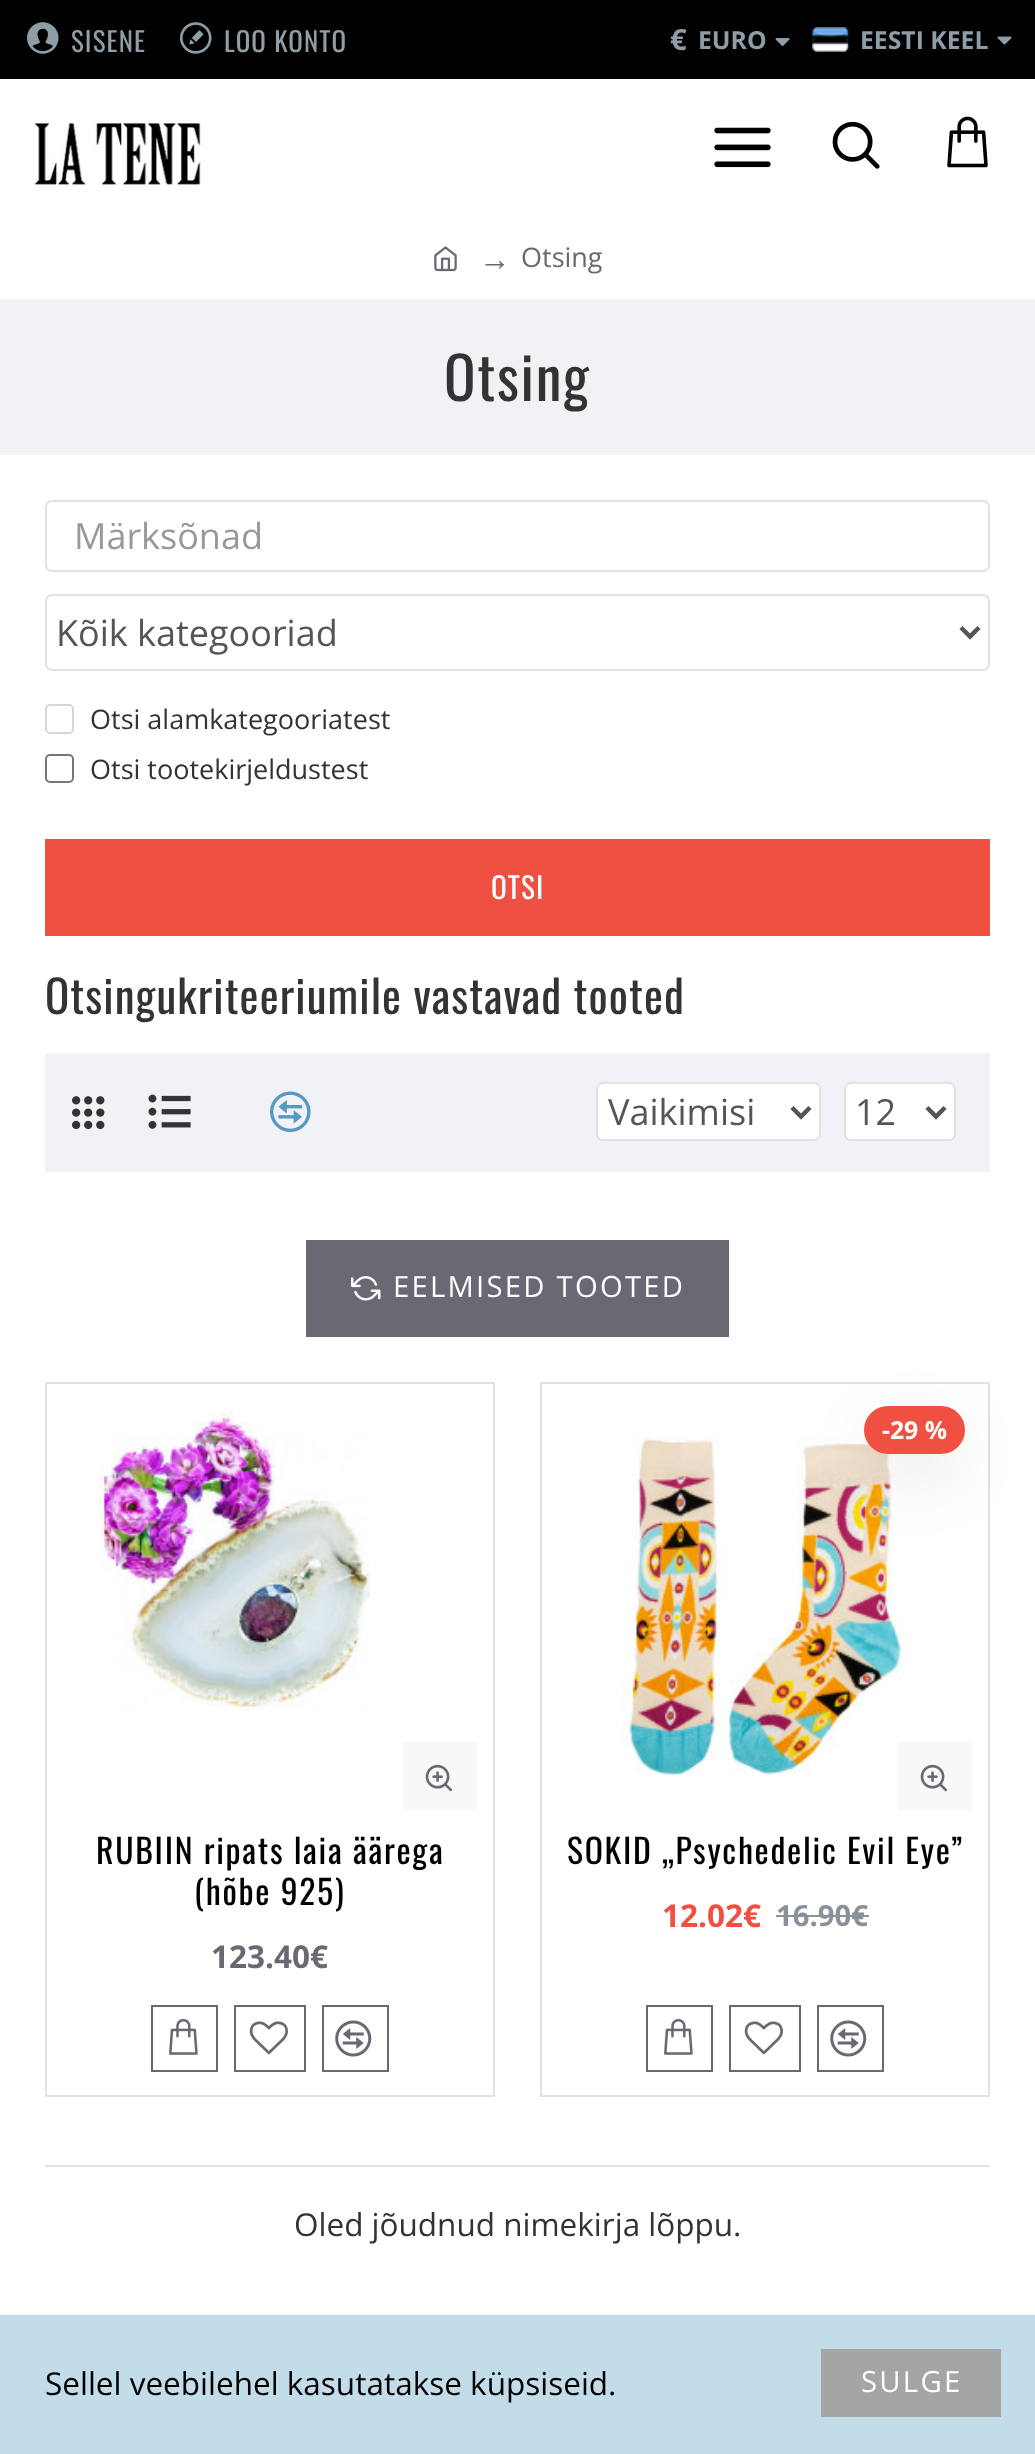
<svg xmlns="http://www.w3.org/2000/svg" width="1035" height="2454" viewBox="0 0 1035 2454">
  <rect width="100%" height="100%" fill="rgb(255,255,255)"/>
  <rect x="0" y="0" width="1035" height="79" fill="rgb(0,0,0)"/>
  <image x="27" y="22" width="32" height="32" href="pic1.png"/>
  <text x="71" y="52" font-family="Oswald" font-size="27" letter-spacing="1.1" fill="rgb(143,157,166)">SISENE</text>
  <image x="180" y="22" width="32" height="32" href="pic2.png"/>
  <text x="224" y="52" font-family="Oswald" font-size="27" letter-spacing="1.1" fill="rgb(143,157,166)">LOO KONTO</text>
  <text x="670" y="50" font-family="Open Sans" font-size="29.25" font-weight="bold" fill="rgb(143,157,166)">€</text>
  <text x="698" y="49" font-family="Open Sans" font-size="24.75" font-weight="bold" fill="rgb(143,157,166)">EURO</text>
  <image x="775" y="38" width="15" height="8" href="pic3.png"/>
  <image x="812" y="27" width="37" height="25" href="pic4.png"/>
  <text x="860" y="49" font-family="Open Sans" font-size="24.75" font-weight="bold" fill="rgb(143,157,166)">EESTI KEEL</text>
  <image x="997" y="36" width="15" height="9" href="pic5.png"/>
  <image x="34" y="123" width="167" height="62" href="pic6.png"/>
  <image x="714" y="127" width="57" height="41" href="pic7.png"/>
  <image x="832" y="121" width="48" height="48" href="pic8.png"/>
  <image x="947" y="116" width="41" height="52" href="pic9.png"/>
  <image x="434" y="246" width="23" height="26" href="pic10.png"/>
  <text x="479" y="270" font-family="Liberation Serif" font-size="31.5" fill="rgb(105,105,115)">→</text>
  <text x="521" y="267" font-family="Open Sans" font-size="27" fill="rgb(105,105,115)">Otsing</text>
  <rect x="0" y="299" width="1035" height="156" fill="rgb(240,242,245)"/>
  <text x="444" y="401" font-family="Oswald" font-size="58.5" letter-spacing="1.7" fill="rgb(51,51,51)">Otsing</text>
  <rect x="46" y="501" width="943" height="70" rx="6" fill="none" stroke="rgb(226,226,226)" stroke-width="2"/>
  <text x="74" y="549" font-family="Open Sans" font-size="36" fill="rgb(153,153,153)">Märksõnad</text>
  <rect x="46" y="595" width="943" height="75" rx="6" fill="none" stroke="rgb(226,226,226)" stroke-width="2"/>
  <path d="M961 627.5L970 636.5L979 627.5" fill="none" stroke="rgb(85,85,85)" stroke-width="4.5"/>
  <text x="56" y="646" font-family="Open Sans" font-size="36" fill="rgb(85,85,85)">Kõik kategooriad</text>
  <rect x="46" y="705" width="27" height="28" rx="4" fill="none" stroke="rgb(214,214,214)" stroke-width="2"/>
  <text x="90" y="729" font-family="Open Sans" font-size="27" fill="rgb(51,51,51)">Otsi alamkategooriatest</text>
  <rect x="46" y="755" width="27" height="27" rx="4" fill="none" stroke="rgb(118,118,118)" stroke-width="2"/>
  <text x="90" y="779" font-family="Open Sans" font-size="27" fill="rgb(51,51,51)">Otsi tootekirjeldustest</text>
  <rect x="45" y="839" width="945" height="97" fill="rgb(239,80,66)"/>
  <text x="491" y="899" font-family="Oswald" font-size="29.25" letter-spacing="1.1" fill="rgb(255,255,255)">OTSI</text>
  <text x="45" y="1014" font-family="Oswald" font-size="45" letter-spacing="1.1" fill="rgb(51,51,51)">Otsingukriteeriumile vastavad tooted</text>
  <rect x="45" y="1053" width="945" height="119" fill="rgb(240,242,245)"/>
  <image x="72" y="1096" width="33" height="34" href="pic11.png"/>
  <image x="148" y="1094" width="43" height="35" href="pic12.png"/>
  <image x="270" y="1091" width="41" height="41" href="pic13.png"/>
  <rect x="597" y="1083" width="223" height="57" rx="6" fill="rgb(255,255,255)" stroke="rgb(226,226,226)" stroke-width="2"/>
  <path d="M792 1107.5L801 1116.5L810 1107.5" fill="none" stroke="rgb(85,85,85)" stroke-width="4.5"/>
  <text x="608" y="1125" font-family="Open Sans" font-size="36" fill="rgb(85,85,85)">Vaikimisi</text>
  <rect x="845" y="1083" width="110" height="57" rx="6" fill="rgb(255,255,255)" stroke="rgb(226,226,226)" stroke-width="2"/>
  <path d="M927 1107.5L936 1116.5L945 1107.5" fill="none" stroke="rgb(85,85,85)" stroke-width="4.5"/>
  <text x="855" y="1125" font-family="Open Sans" font-size="36" fill="rgb(85,85,85)">12</text>
  <rect x="306" y="1240" width="423" height="97" fill="rgb(105,105,115)"/>
  <image x="351" y="1276" width="30" height="25" href="pic14.png"/>
  <text x="393" y="1297" font-family="Open Sans" font-size="29.25" letter-spacing="2.25" fill="rgb(255,255,255)">EELMISED TOOTED</text>
  <rect x="46" y="1383" width="448" height="713" fill="none" stroke="rgb(226,226,226)" stroke-width="2"/>
  <image x="99" y="1409" width="272" height="301" href="pic15.png"/>
  <rect x="403" y="1742" width="74" height="69" fill="rgb(248,248,248)"/>
  <image x="425" y="1764" width="27" height="28" href="pic16.png"/>
  <g font-family="Oswald" font-size="33.75" letter-spacing="1.7" fill="rgb(0,0,0)">
    <text x="96" y="1864">RUBIIN ripats laia äärega</text>
    <text x="194" y="1905">(hõbe 925)</text>
  </g>
  <text x="211" y="1968" font-family="Open Sans" font-size="31.5" font-weight="bold" fill="rgb(105,105,115)">123.40€</text>
  <rect x="152" y="2006" width="65" height="65" fill="none" stroke="rgb(105,105,115)" stroke-width="2"/>
  <image x="169" y="2018" width="29" height="37" href="pic17.png"/>
  <rect x="235" y="2006" width="70" height="65" fill="none" stroke="rgb(105,105,115)" stroke-width="2"/>
  <image x="249" y="2021" width="39" height="34" href="pic18.png"/>
  <rect x="323" y="2006" width="65" height="65" fill="none" stroke="rgb(105,105,115)" stroke-width="2"/>
  <image x="335" y="2020" width="37" height="37" href="pic19.png"/>
  <rect x="541" y="1383" width="448" height="713" fill="none" stroke="rgb(226,226,226)" stroke-width="2"/>
  <image x="621" y="1436" width="284" height="339" href="pic20.png"/>
  <rect x="875" y="1440" width="79" height="25" rx="12.5" fill="rgba(0,0,0,0.2)" filter="blur(34px)"/>
  <rect x="864" y="1406" width="101" height="48" rx="24" fill="rgb(239,80,66)"/>
  <text x="882" y="1439" font-family="Open Sans" font-size="24.75" font-weight="bold" fill="rgb(255,255,255)">-29 %</text>
  <rect x="898" y="1742" width="74" height="69" fill="rgb(248,248,248)"/>
  <image x="920" y="1764" width="27" height="28" href="pic21.png"/>
  <text x="567" y="1864" font-family="Oswald" font-size="33.75" letter-spacing="1.7" fill="rgb(0,0,0)">SOKID „Psychedelic Evil Eye”</text>
  <text x="662" y="1927" font-family="Open Sans" font-size="31.5" font-weight="bold" fill="rgb(239,80,66)">12.02€</text>
  <text x="776" y="1926" font-family="Open Sans" font-size="29.25" font-weight="bold" fill="rgb(139,145,152)">16.90€</text>
  <rect x="776" y="1915" width="93" height="2" fill="rgb(139,145,152)"/>
  <rect x="647" y="2006" width="65" height="65" fill="none" stroke="rgb(105,105,115)" stroke-width="2"/>
  <image x="664" y="2018" width="29" height="37" href="pic17.png"/>
  <rect x="730" y="2006" width="70" height="65" fill="none" stroke="rgb(105,105,115)" stroke-width="2"/>
  <image x="744" y="2021" width="39" height="34" href="pic18.png"/>
  <rect x="818" y="2006" width="65" height="65" fill="none" stroke="rgb(105,105,115)" stroke-width="2"/>
  <image x="830" y="2020" width="37" height="37" href="pic19.png"/>
  <rect x="45" y="2165" width="945" height="2" fill="rgb(226,226,226)"/>
  <text x="294" y="2236" font-family="Open Sans" font-size="31.5" fill="rgb(51,51,51)">Oled jõudnud nimekirja lõppu.</text>
  <rect x="0" y="2315" width="1035" height="139" fill="rgb(194,220,234)"/>
  <text x="45" y="2395" font-family="Open Sans" font-size="31.5" fill="rgb(0,0,0)">Sellel veebilehel kasutatakse küpsiseid.</text>
  <rect x="821" y="2349" width="180" height="68" fill="rgb(167,164,164)"/>
  <text x="861" y="2392" font-family="Open Sans" font-size="29.25" letter-spacing="2.25" fill="rgb(255,255,255)">SULGE</text>
</svg>
